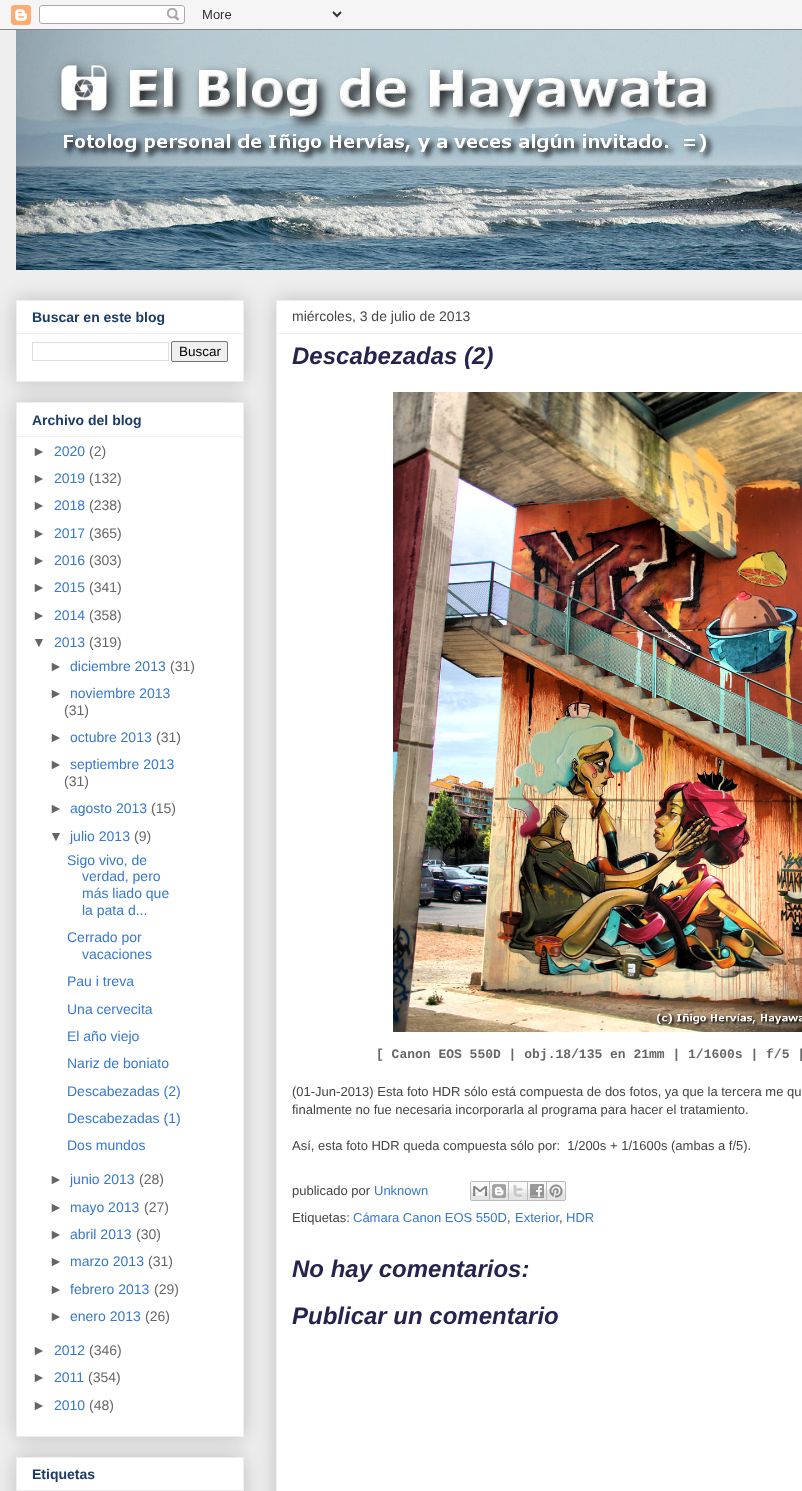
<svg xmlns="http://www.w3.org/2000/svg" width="802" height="1491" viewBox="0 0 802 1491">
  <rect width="100%" height="100%" fill="rgb(238,238,238)"/>
  <image x="0" y="0" width="802" height="30" href="pic1.png"/>
  <image x="16" y="30" width="786" height="240" href="pic2.png"/>
  <rect x="16" y="300" width="228" height="82" fill="rgba(0,0,0,0.2)" filter="blur(10px)"/>
  <rect x="16.5" y="300.5" width="227" height="81" fill="rgb(255,255,255)" stroke="rgb(238,238,238)"/>
  <text x="32" y="322" font-family="Liberation Sans" font-size="14" font-weight="bold" fill="rgb(27,59,102)">Buscar en este blog</text>
  <rect x="17" y="333" width="226" height="1" fill="rgb(238,238,238)"/>
  <rect x="32.5" y="342.5" width="136" height="18" fill="none" stroke="rgb(221,221,221)"/>
  <rect x="171.5" y="341.5" width="56" height="20" rx="1.5" fill="rgb(239,239,239)" stroke="rgb(118,118,118)"/>
  <text x="179" y="356" font-family="Liberation Sans" font-size="13.5" fill="rgb(0,0,0)">Buscar</text>
  <rect x="16" y="402" width="228" height="1035" fill="rgba(0,0,0,0.2)" filter="blur(10px)"/>
  <rect x="16.5" y="402.5" width="227" height="1034" fill="rgb(255,255,255)" stroke="rgb(238,238,238)"/>
  <text x="32" y="425" font-family="Liberation Sans" font-size="14" font-weight="bold" fill="rgb(27,59,102)">Archivo del blog</text>
  <rect x="17" y="436" width="226" height="1" fill="rgb(238,238,238)"/>
  <text x="32" y="456" font-family="Liberation Sans" font-size="14" fill="rgb(102,102,102)">►</text>
  <text x="54" y="456" font-family="Liberation Sans" font-size="14" fill="rgb(55,120,205)">2020</text>
  <g font-family="Liberation Sans" font-size="14" fill="rgb(102,102,102)">
    <text x="89" y="456">(2)</text>
    <text x="32" y="483">►</text>
  </g>
  <text x="54" y="483" font-family="Liberation Sans" font-size="14" fill="rgb(55,120,205)">2019</text>
  <g font-family="Liberation Sans" font-size="14" fill="rgb(102,102,102)">
    <text x="89" y="483">(132)</text>
    <text x="32" y="510">►</text>
  </g>
  <text x="54" y="510" font-family="Liberation Sans" font-size="14" fill="rgb(55,120,205)">2018</text>
  <g font-family="Liberation Sans" font-size="14" fill="rgb(102,102,102)">
    <text x="89" y="510">(238)</text>
    <text x="32" y="538">►</text>
  </g>
  <text x="54" y="538" font-family="Liberation Sans" font-size="14" fill="rgb(55,120,205)">2017</text>
  <g font-family="Liberation Sans" font-size="14" fill="rgb(102,102,102)">
    <text x="89" y="538">(365)</text>
    <text x="32" y="565">►</text>
  </g>
  <text x="54" y="565" font-family="Liberation Sans" font-size="14" fill="rgb(55,120,205)">2016</text>
  <g font-family="Liberation Sans" font-size="14" fill="rgb(102,102,102)">
    <text x="89" y="565">(303)</text>
    <text x="32" y="592">►</text>
  </g>
  <text x="54" y="592" font-family="Liberation Sans" font-size="14" fill="rgb(55,120,205)">2015</text>
  <g font-family="Liberation Sans" font-size="14" fill="rgb(102,102,102)">
    <text x="89" y="592">(341)</text>
    <text x="32" y="620">►</text>
  </g>
  <text x="54" y="620" font-family="Liberation Sans" font-size="14" fill="rgb(55,120,205)">2014</text>
  <g font-family="Liberation Sans" font-size="14" fill="rgb(102,102,102)">
    <text x="89" y="620">(358)</text>
    <text x="32" y="647">▼</text>
  </g>
  <text x="54" y="647" font-family="Liberation Sans" font-size="14" fill="rgb(55,120,205)">2013</text>
  <g font-family="Liberation Sans" font-size="14" fill="rgb(102,102,102)">
    <text x="89" y="647">(319)</text>
    <text x="49" y="671">►</text>
  </g>
  <text x="70" y="671" font-family="Liberation Sans" font-size="14" fill="rgb(55,120,205)">diciembre 2013</text>
  <g font-family="Liberation Sans" font-size="14" fill="rgb(102,102,102)">
    <text x="170" y="671">(31)</text>
    <text x="49" y="698">►</text>
  </g>
  <text x="70" y="698" font-family="Liberation Sans" font-size="14" fill="rgb(55,120,205)">noviembre 2013</text>
  <g font-family="Liberation Sans" font-size="14" fill="rgb(102,102,102)">
    <text x="64" y="715">(31)</text>
    <text x="49" y="742">►</text>
  </g>
  <text x="70" y="742" font-family="Liberation Sans" font-size="14" fill="rgb(55,120,205)">octubre 2013</text>
  <g font-family="Liberation Sans" font-size="14" fill="rgb(102,102,102)">
    <text x="156" y="742">(31)</text>
    <text x="49" y="769">►</text>
  </g>
  <text x="70" y="769" font-family="Liberation Sans" font-size="14" fill="rgb(55,120,205)">septiembre 2013</text>
  <g font-family="Liberation Sans" font-size="14" fill="rgb(102,102,102)">
    <text x="64" y="786">(31)</text>
    <text x="49" y="813">►</text>
  </g>
  <text x="70" y="813" font-family="Liberation Sans" font-size="14" fill="rgb(55,120,205)">agosto 2013</text>
  <g font-family="Liberation Sans" font-size="14" fill="rgb(102,102,102)">
    <text x="151" y="813">(15)</text>
    <text x="49" y="841">▼</text>
  </g>
  <text x="70" y="841" font-family="Liberation Sans" font-size="14" fill="rgb(55,120,205)">julio 2013</text>
  <text x="134" y="841" font-family="Liberation Sans" font-size="14" fill="rgb(102,102,102)">(9)</text>
  <g font-family="Liberation Sans" font-size="14" fill="rgb(55,120,205)">
    <text x="67" y="865">Sigo vivo, de</text>
    <text>
      <tspan x="82" y="881">verdad, pero</tspan>
      <tspan x="82" y="898">más liado que</tspan>
      <tspan x="82" y="915">la pata d...</tspan>
    </text>
    <text x="67" y="942">Cerrado por</text>
    <text x="82" y="959">vacaciones</text>
    <text x="67" y="986">Pau i treva</text>
    <text>
      <tspan x="67" y="1014">Una cervecita</tspan>
      <tspan x="67" y="1041">El año viejo</tspan>
      <tspan x="67" y="1068">Nariz de boniato</tspan>
    </text>
    <text>
      <tspan x="67" y="1096">Descabezadas (2)</tspan>
      <tspan x="67" y="1123">Descabezadas (1)</tspan>
      <tspan x="67" y="1150">Dos mundos</tspan>
    </text>
  </g>
  <text x="49" y="1184" font-family="Liberation Sans" font-size="14" fill="rgb(102,102,102)">►</text>
  <text x="70" y="1184" font-family="Liberation Sans" font-size="14" fill="rgb(55,120,205)">junio 2013</text>
  <g font-family="Liberation Sans" font-size="14" fill="rgb(102,102,102)">
    <text x="139" y="1184">(28)</text>
    <text x="49" y="1212">►</text>
  </g>
  <text x="70" y="1212" font-family="Liberation Sans" font-size="14" fill="rgb(55,120,205)">mayo 2013</text>
  <g font-family="Liberation Sans" font-size="14" fill="rgb(102,102,102)">
    <text x="144" y="1212">(27)</text>
    <text x="49" y="1239">►</text>
  </g>
  <text x="70" y="1239" font-family="Liberation Sans" font-size="14" fill="rgb(55,120,205)">abril 2013</text>
  <g font-family="Liberation Sans" font-size="14" fill="rgb(102,102,102)">
    <text x="136" y="1239">(30)</text>
    <text x="49" y="1266">►</text>
  </g>
  <text x="70" y="1266" font-family="Liberation Sans" font-size="14" fill="rgb(55,120,205)">marzo 2013</text>
  <g font-family="Liberation Sans" font-size="14" fill="rgb(102,102,102)">
    <text x="148" y="1266">(31)</text>
    <text x="49" y="1294">►</text>
  </g>
  <text x="70" y="1294" font-family="Liberation Sans" font-size="14" fill="rgb(55,120,205)">febrero 2013</text>
  <g font-family="Liberation Sans" font-size="14" fill="rgb(102,102,102)">
    <text x="154" y="1294">(29)</text>
    <text x="49" y="1321">►</text>
  </g>
  <text x="70" y="1321" font-family="Liberation Sans" font-size="14" fill="rgb(55,120,205)">enero 2013</text>
  <g font-family="Liberation Sans" font-size="14" fill="rgb(102,102,102)">
    <text x="145" y="1321">(26)</text>
    <text x="32" y="1355">►</text>
  </g>
  <text x="54" y="1355" font-family="Liberation Sans" font-size="14" fill="rgb(55,120,205)">2012</text>
  <g font-family="Liberation Sans" font-size="14" fill="rgb(102,102,102)">
    <text x="89" y="1355">(346)</text>
    <text x="32" y="1382">►</text>
  </g>
  <text x="54" y="1382" font-family="Liberation Sans" font-size="14" fill="rgb(55,120,205)">2011</text>
  <g font-family="Liberation Sans" font-size="14" fill="rgb(102,102,102)">
    <text x="88" y="1382">(354)</text>
    <text x="32" y="1410">►</text>
  </g>
  <text x="54" y="1410" font-family="Liberation Sans" font-size="14" fill="rgb(55,120,205)">2010</text>
  <text x="89" y="1410" font-family="Liberation Sans" font-size="14" fill="rgb(102,102,102)">(48)</text>
  <rect x="16" y="1457" width="228" height="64" fill="rgba(0,0,0,0.2)" filter="blur(10px)"/>
  <rect x="17" y="1458" width="226" height="32" fill="rgb(255,255,255)"/>
  <rect x="16.5" y="1457.5" width="227" height="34" fill="none" stroke="rgb(238,238,238)"/>
  <text x="32" y="1479" font-family="Liberation Sans" font-size="14" font-weight="bold" fill="rgb(27,59,102)">Etiquetas</text>
  <rect x="17" y="1490" width="226" height="1" fill="rgb(238,238,238)"/>
  <rect x="276" y="300" width="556" height="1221" fill="rgba(0,0,0,0.2)" filter="blur(10px)"/>
  <rect x="276.5" y="300.5" width="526" height="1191" fill="rgb(255,255,255)" stroke="rgb(238,238,238)"/>
  <text x="292" y="321" font-family="Liberation Sans" font-size="14" fill="rgb(68,68,68)">miércoles, 3 de julio de 2013</text>
  <rect x="277" y="333" width="525" height="1" fill="rgb(238,238,238)"/>
  <text x="292" y="364" font-family="Liberation Sans" font-size="24" font-weight="bold" font-style="italic" fill="rgb(38,35,78)">Descabezadas (2)</text>
  <image x="393" y="392" width="409" height="640" href="pic3.png"/>
  <text x="376" y="1058" font-family="Liberation Mono" font-size="13" font-weight="bold" fill="rgb(102,102,102)">[ Canon EOS 550D | obj.18/135 en 21mm | 1/1600s | f/5 |</text>
  <g font-family="Liberation Sans" font-size="13" fill="rgb(68,68,68)">
    <text>
      <tspan x="292" y="1096">(01-Jun-2013) Esta foto HDR sólo está compuesta de dos fotos, ya que la tercera me qu</tspan>
      <tspan x="292" y="1114">finalmente no fue necesaria incorporarla al programa para hacer el tratamiento.</tspan>
    </text>
    <text x="292" y="1150" xml:space="preserve">Así, esta foto HDR queda compuesta sólo por:  1/200s + 1/1600s (ambas a f/5).</text>
    <text x="292" y="1195">publicado por</text>
  </g>
  <text x="374" y="1195" font-family="Liberation Sans" font-size="13" fill="rgb(55,120,205)">Unknown</text>
  <image x="470" y="1181" width="20" height="20" href="pic4.png"/>
  <image x="490" y="1181" width="19" height="20" href="pic5.png"/>
  <image x="509" y="1181" width="19" height="20" href="pic6.png"/>
  <image x="528" y="1181" width="19" height="20" href="pic7.png"/>
  <image x="547" y="1181" width="19" height="20" href="pic8.png"/>
  <text x="292" y="1222" font-family="Liberation Sans" font-size="13" fill="rgb(68,68,68)">Etiquetas:</text>
  <text x="353" y="1222" font-family="Liberation Sans" font-size="13" fill="rgb(55,120,205)">Cámara Canon EOS 550D</text>
  <text x="507" y="1222" font-family="Liberation Sans" font-size="13" fill="rgb(68,68,68)">,</text>
  <text x="515" y="1222" font-family="Liberation Sans" font-size="13" fill="rgb(55,120,205)">Exterior</text>
  <text x="559" y="1222" font-family="Liberation Sans" font-size="13" fill="rgb(68,68,68)">,</text>
  <text x="566" y="1222" font-family="Liberation Sans" font-size="13" fill="rgb(55,120,205)">HDR</text>
  <g font-family="Liberation Sans" font-size="24" font-weight="bold" font-style="italic" fill="rgb(38,35,78)">
    <text>
      <tspan x="292" y="1277">No hay comentarios:</tspan>
      <tspan x="292" y="1324">Publicar un comentario</tspan>
    </text>
  </g>
</svg>
